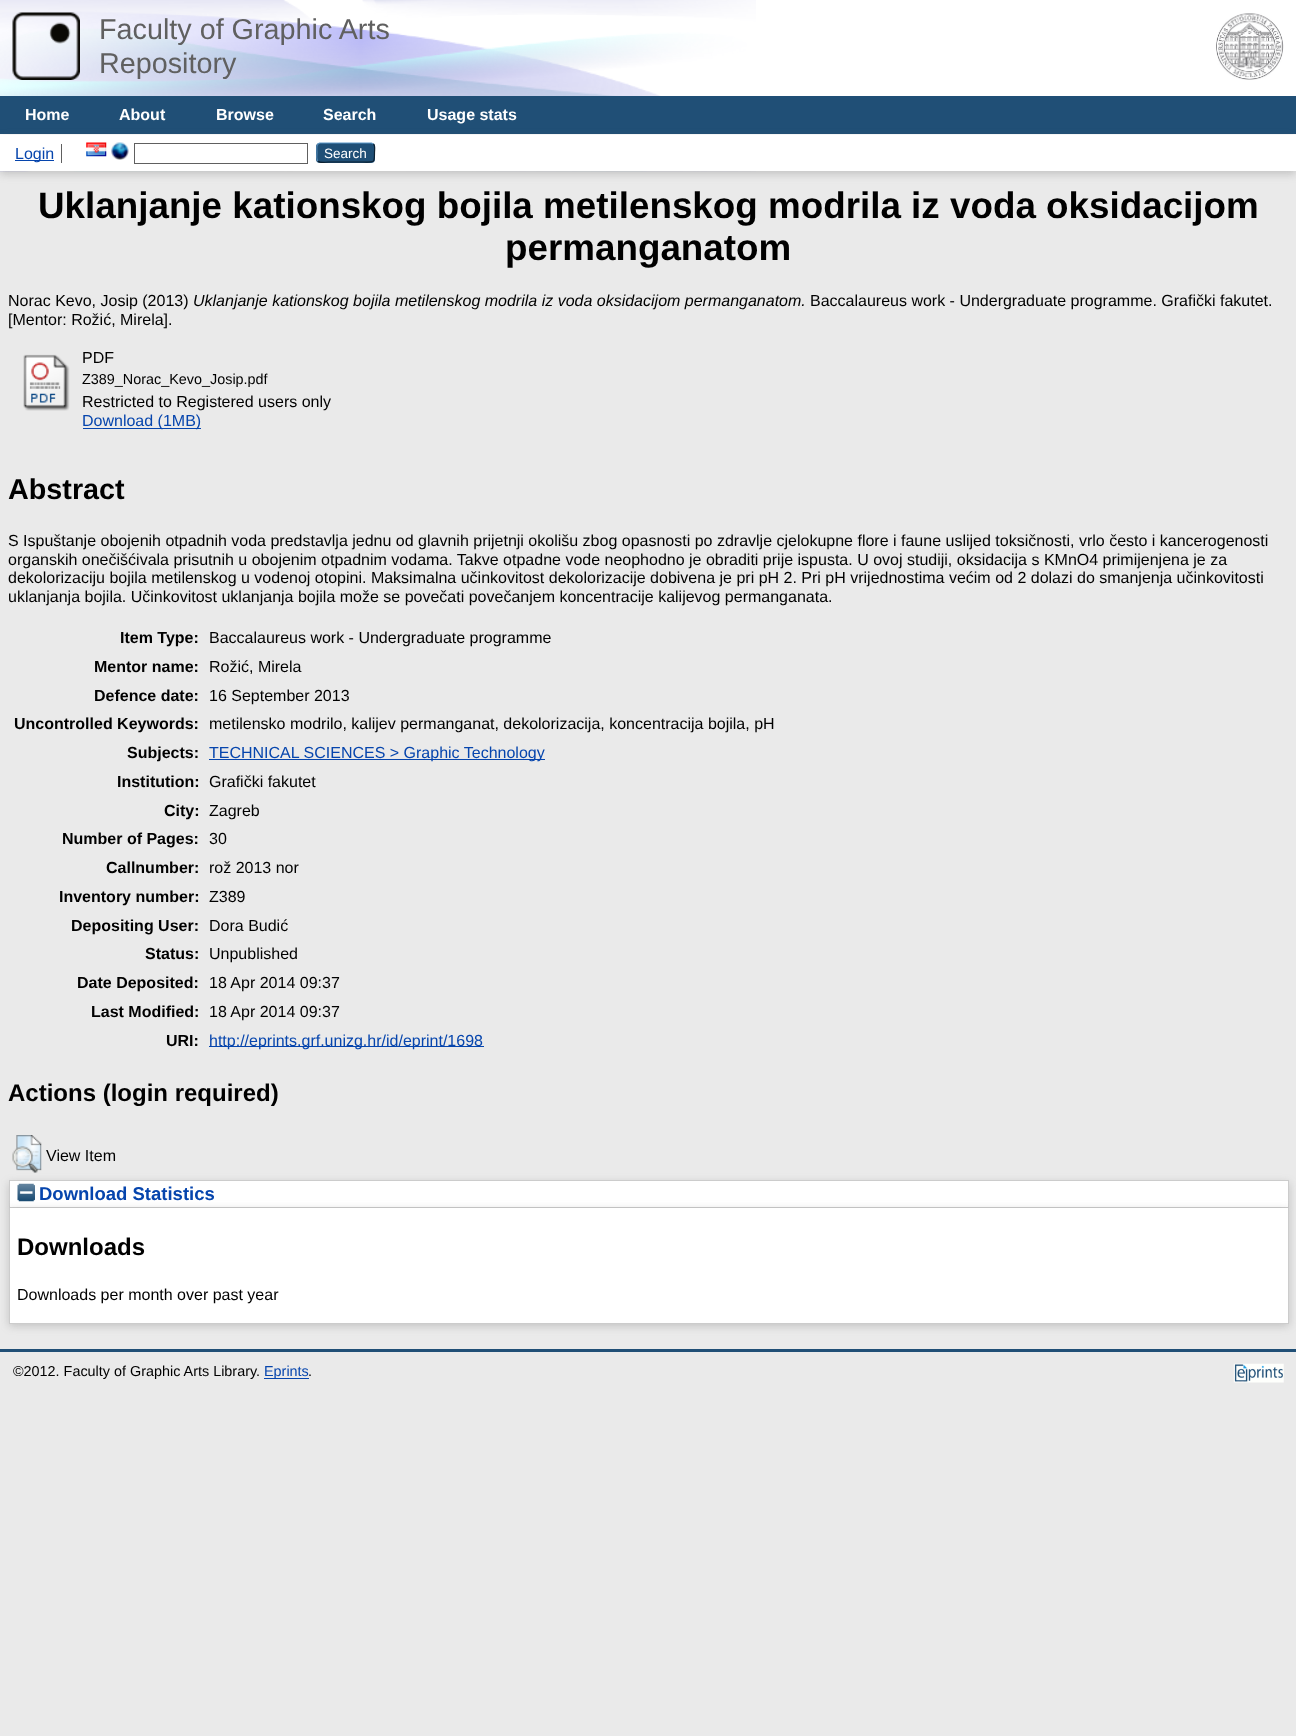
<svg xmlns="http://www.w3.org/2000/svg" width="1296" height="1736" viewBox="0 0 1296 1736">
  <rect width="100%" height="100%" fill="rgb(234,234,234)"/>
  <rect x="0" y="0" width="1296" height="96" fill="rgb(255,255,255)"/>
  <image x="0" y="0" width="756" height="172" href="pic1.png"/>
  <image x="12" y="12" width="68" height="68" href="pic2.png"/>
  <g font-family="Liberation Sans" font-size="28.75" fill="rgb(96,96,96)">
    <text>
      <tspan x="99" y="39">Faculty of Graphic Arts</tspan>
      <tspan x="99" y="73">Repository</tspan>
    </text>
  </g>
  <image x="1216" y="13" width="68" height="67" href="pic3.png"/>
  <rect x="0" y="96" width="1296" height="38" fill="rgb(32,79,118)"/>
  <rect x="0" y="134" width="1296" height="1" fill="rgb(255,255,255)"/>
  <g font-family="Liberation Sans" font-size="16" font-weight="bold" fill="rgb(255,255,255)">
    <text x="25" y="120">Home</text>
    <text x="119" y="120">About</text>
    <text x="216" y="120">Browse</text>
    <text x="323" y="120">Search</text>
    <text x="427" y="120">Usage stats</text>
  </g>
  <rect x="0" y="138" width="1296" height="36" fill="rgba(100,100,100,0.3)" filter="blur(4px)"/>
  <rect x="0" y="135" width="1296" height="36" fill="rgb(255,255,255)"/>
  <rect x="61" y="144" width="1" height="19" fill="rgb(96,96,96)"/>
  <rect x="15" y="160" width="39" height="1" fill="rgb(6,69,173)"/>
  <text x="15" y="159" font-family="Liberation Sans" font-size="16" fill="rgb(6,69,173)">Login</text>
  <image x="86" y="142" width="21" height="15" href="pic4.png"/>
  <image x="111" y="142" width="18" height="18" href="pic5.png"/>
  <rect x="134.5" y="143.5" width="173" height="20" fill="none" stroke="rgb(96,96,96)"/>
  <rect x="316" y="143" width="59" height="20" rx="4" fill="rgb(31,79,118)"/>
  <path d="M318 144L319.5 143H371.5L373.5 144" fill="none" stroke="rgb(91,151,199)" stroke-width="1.2"/>
  <path d="M373.5 144C375.5 146 374.5 150 374.5 152.5C374.5 163.5 374.5 162 362.5 162H328.5C328.5 162 320 163 318 161" fill="none" stroke="rgb(13,33,49)" stroke-width="1.2"/>
  <path d="M318 161C316 159 317 154.5 317 152.5C317 150.5 316 146 318 144" fill="none" stroke="rgb(82,135,179)" stroke-width="1.2"/>
  <text x="324" y="158" font-family="Liberation Sans" font-size="13.5" fill="rgb(255,255,255)">Search</text>
  <g font-family="Liberation Sans" font-size="36.8" font-weight="bold" fill="rgb(0,0,0)">
    <text x="38" y="218">Uklanjanje kationskog bojila metilenskog modrila iz voda oksidacijom</text>
    <text x="505" y="260">permanganatom</text>
  </g>
  <text x="8" y="306" font-family="Liberation Sans" font-size="16" fill="rgb(0,0,0)">Norac Kevo, Josip (2013)</text>
  <text x="193" y="306" font-family="Liberation Sans" font-size="16" font-style="italic" fill="rgb(0,0,0)">Uklanjanje kationskog bojila metilenskog modrila iz voda oksidacijom permanganatom.</text>
  <g font-family="Liberation Sans" font-size="16" fill="rgb(0,0,0)">
    <text x="810" y="306">Baccalaureus work - Undergraduate programme. Grafički fakutet.</text>
    <text x="8" y="325">[Mentor: Rožić, Mirela].</text>
  </g>
  <image x="23" y="354" width="47" height="57" href="pic6.png"/>
  <text x="82" y="363" font-family="Liberation Sans" font-size="16" fill="rgb(0,0,0)">PDF</text>
  <text x="82" y="384" font-family="Liberation Sans" font-size="14.4" fill="rgb(0,0,0)">Z389_Norac_Kevo_Josip.pdf</text>
  <text x="82" y="407" font-family="Liberation Sans" font-size="16" fill="rgb(0,0,0)">Restricted to Registered users only</text>
  <rect x="83" y="428" width="118" height="1" fill="rgb(6,69,173)"/>
  <text x="82" y="426" font-family="Liberation Sans" font-size="16" fill="rgb(6,69,173)">Download (1MB)</text>
  <text x="8" y="499" font-family="Liberation Sans" font-size="28.75" font-weight="bold" fill="rgb(0,0,0)">Abstract</text>
  <g font-family="Liberation Sans" font-size="16" fill="rgb(0,0,0)">
    <text>
      <tspan x="8" y="546">S Ispuštanje obojenih otpadnih voda predstavlja jednu od glavnih prijetnji okolišu zbog opasnosti po zdravlje cjelokupne flore i faune uslijed toksičnosti, vrlo često i kancerogenosti</tspan>
      <tspan x="8" y="565">organskih onečišćivala prisutnih u obojenim otpadnim vodama. Takve otpadne vode neophodno je obraditi prije ispusta. U ovoj studiji, oksidacija s KMnO4 primijenjena je za</tspan>
      <tspan x="8" y="583">dekolorizaciju bojila metilenskog u vodenoj otopini. Maksimalna učinkovitost dekolorizacije dobivena je pri pH 2. Pri pH vrijednostima većim od 2 dolazi do smanjenja učinkovitosti</tspan>
      <tspan x="8" y="602">uklanjanja bojila. Učinkovitost uklanjanja bojila može se povečati povečanjem koncentracije kalijevog permanganata.</tspan>
    </text>
  </g>
  <text x="120" y="643" font-family="Liberation Sans" font-size="16" font-weight="bold" fill="rgb(0,0,0)">Item Type:</text>
  <text x="209" y="643" font-family="Liberation Sans" font-size="16" fill="rgb(0,0,0)">Baccalaureus work - Undergraduate programme</text>
  <text x="94" y="672" font-family="Liberation Sans" font-size="16" font-weight="bold" fill="rgb(0,0,0)">Mentor name:</text>
  <text x="209" y="672" font-family="Liberation Sans" font-size="16" fill="rgb(0,0,0)">Rožić, Mirela</text>
  <text x="94" y="701" font-family="Liberation Sans" font-size="16" font-weight="bold" fill="rgb(0,0,0)">Defence date:</text>
  <text x="209" y="701" font-family="Liberation Sans" font-size="16" fill="rgb(0,0,0)">16 September 2013</text>
  <text x="14" y="729" font-family="Liberation Sans" font-size="16" font-weight="bold" fill="rgb(0,0,0)">Uncontrolled Keywords:</text>
  <text x="209" y="729" font-family="Liberation Sans" font-size="16" fill="rgb(0,0,0)">metilensko modrilo, kalijev permanganat, dekolorizacija, koncentracija bojila, pH</text>
  <text x="127" y="758" font-family="Liberation Sans" font-size="16" font-weight="bold" fill="rgb(0,0,0)">Subjects:</text>
  <rect x="209" y="759" width="336" height="1" fill="rgb(6,69,173)"/>
  <text x="209" y="758" font-family="Liberation Sans" font-size="16" fill="rgb(6,69,173)">TECHNICAL SCIENCES &gt; Graphic Technology</text>
  <text x="117" y="787" font-family="Liberation Sans" font-size="16" font-weight="bold" fill="rgb(0,0,0)">Institution:</text>
  <text x="209" y="787" font-family="Liberation Sans" font-size="16" fill="rgb(0,0,0)">Grafički fakutet</text>
  <text x="164" y="816" font-family="Liberation Sans" font-size="16" font-weight="bold" fill="rgb(0,0,0)">City:</text>
  <text x="209" y="816" font-family="Liberation Sans" font-size="16" fill="rgb(0,0,0)">Zagreb</text>
  <text x="62" y="844" font-family="Liberation Sans" font-size="16" font-weight="bold" fill="rgb(0,0,0)">Number of Pages:</text>
  <text x="209" y="844" font-family="Liberation Sans" font-size="16" fill="rgb(0,0,0)">30</text>
  <text x="106" y="873" font-family="Liberation Sans" font-size="16" font-weight="bold" fill="rgb(0,0,0)">Callnumber:</text>
  <text x="209" y="873" font-family="Liberation Sans" font-size="16" fill="rgb(0,0,0)">rož 2013 nor</text>
  <text x="59" y="902" font-family="Liberation Sans" font-size="16" font-weight="bold" fill="rgb(0,0,0)">Inventory number:</text>
  <text x="209" y="902" font-family="Liberation Sans" font-size="16" fill="rgb(0,0,0)">Z389</text>
  <text x="71" y="931" font-family="Liberation Sans" font-size="16" font-weight="bold" fill="rgb(0,0,0)">Depositing User:</text>
  <text x="209" y="931" font-family="Liberation Sans" font-size="16" fill="rgb(0,0,0)">Dora Budić</text>
  <text x="145" y="959" font-family="Liberation Sans" font-size="16" font-weight="bold" fill="rgb(0,0,0)">Status:</text>
  <text x="209" y="959" font-family="Liberation Sans" font-size="16" fill="rgb(0,0,0)">Unpublished</text>
  <text x="77" y="988" font-family="Liberation Sans" font-size="16" font-weight="bold" fill="rgb(0,0,0)">Date Deposited:</text>
  <text x="209" y="988" font-family="Liberation Sans" font-size="16" fill="rgb(0,0,0)">18 Apr 2014 09:37</text>
  <text x="91" y="1017" font-family="Liberation Sans" font-size="16" font-weight="bold" fill="rgb(0,0,0)">Last Modified:</text>
  <text x="209" y="1017" font-family="Liberation Sans" font-size="16" fill="rgb(0,0,0)">18 Apr 2014 09:37</text>
  <text x="166" y="1046" font-family="Liberation Sans" font-size="16" font-weight="bold" fill="rgb(0,0,0)">URI:</text>
  <rect x="209" y="1046" width="275" height="1" fill="rgb(6,69,173)"/>
  <text x="209" y="1046" font-family="Liberation Sans" font-size="16" fill="rgb(6,69,173)">http://eprints.grf.unizg.hr/id/eprint/1698</text>
  <text x="8" y="1101" font-family="Liberation Sans" font-size="24" font-weight="bold" fill="rgb(0,0,0)">Actions (login required)</text>
  <rect x="9" y="1183" width="1280" height="27" fill="rgba(100,100,100,0.3)" filter="blur(4px)"/>
  <image x="12" y="1135" width="30" height="38" href="pic7.png"/>
  <text x="46" y="1161" font-family="Liberation Sans" font-size="16" fill="rgb(0,0,0)">View Item</text>
  <rect x="9.5" y="1180.5" width="1279" height="27" fill="rgb(255,255,255)" stroke="rgb(204,204,204)"/>
  <rect x="9" y="1210" width="1280" height="116" fill="rgba(100,100,100,0.3)" filter="blur(4px)"/>
  <image x="17" y="1183" width="18" height="19" href="pic8.png"/>
  <text x="39" y="1200" font-family="Liberation Sans" font-size="18.5" font-weight="bold" fill="rgb(6,69,173)">Download Statistics</text>
  <rect x="10" y="1208" width="1278" height="115" fill="rgb(255,255,255)"/>
  <rect x="1288" y="1208" width="1" height="116" fill="rgb(204,204,204)"/>
  <rect x="9" y="1323" width="1280" height="1" fill="rgb(204,204,204)"/>
  <rect x="9" y="1208" width="1" height="116" fill="rgb(204,204,204)"/>
  <text x="17" y="1255" font-family="Liberation Sans" font-size="24" font-weight="bold" fill="rgb(0,0,0)">Downloads</text>
  <text x="17" y="1300" font-family="Liberation Sans" font-size="16" fill="rgb(0,0,0)">Downloads per month over past year</text>
  <rect x="0" y="1349" width="1296" height="3" fill="rgb(32,79,118)"/>
  <text x="13" y="1376" font-family="Liberation Sans" font-size="14.4" fill="rgb(0,0,0)">©2012. Faculty of Graphic Arts Library.</text>
  <rect x="264" y="1378" width="45" height="1" fill="rgb(6,69,173)"/>
  <text x="264" y="1376" font-family="Liberation Sans" font-size="14.4" fill="rgb(6,69,173)">Eprints</text>
  <text x="308" y="1376" font-family="Liberation Sans" font-size="14.4" fill="rgb(0,0,0)">.</text>
  <image x="1233" y="1363" width="51" height="20" href="pic9.png"/>
</svg>
